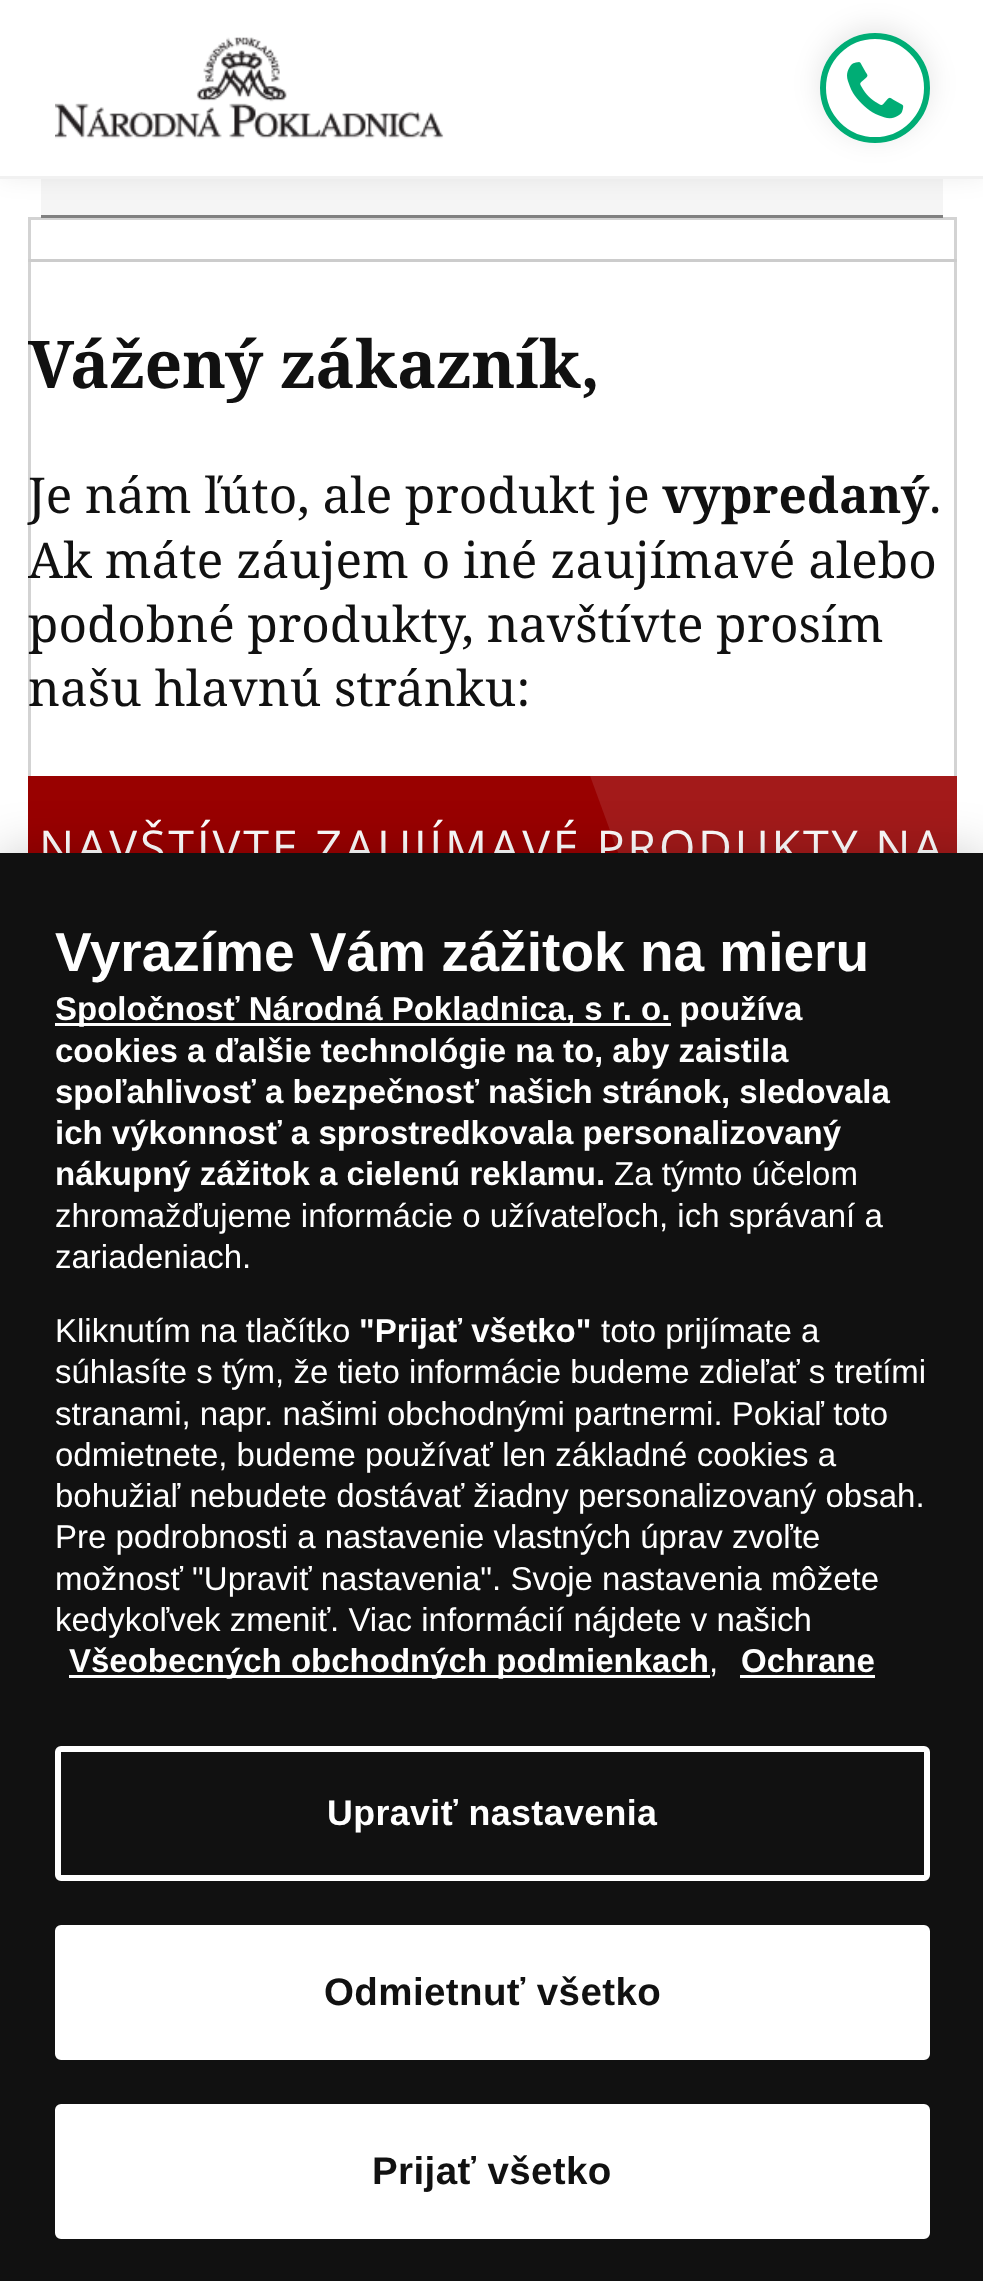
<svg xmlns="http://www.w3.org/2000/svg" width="983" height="2281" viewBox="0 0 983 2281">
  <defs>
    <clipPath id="clip1"><path d="M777 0H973V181H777ZM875 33C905.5 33 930 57.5 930 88C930 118.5 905.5 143 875 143C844.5 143 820 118.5 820 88C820 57.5 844.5 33 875 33Z" clip-rule="evenodd"/></clipPath>
    <clipPath id="clip2"><rect x="28" y="776" width="929" height="195"/></clipPath>
    <clipPath id="clip3"><rect x="55" y="996" width="875" height="684"/></clipPath>
  </defs>
  <rect width="100%" height="100%" fill="rgb(255,255,255)"/>
  <rect x="29.5" y="218.5" width="926" height="1576" fill="none" stroke="rgb(211,211,211)" stroke-width="3"/>
  <rect x="41" y="215" width="902" height="3" fill="rgb(128,128,128)"/>
  <rect x="41" y="179" width="902" height="36" fill="rgb(245,245,245)"/>
  <rect x="0" y="-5" width="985" height="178" fill="rgba(0,0,0,0.1)" filter="blur(14px)"/>
  <rect x="0" y="0" width="983" height="176" fill="rgb(255,255,255)"/>
  <rect x="0" y="176" width="983" height="3" fill="rgb(241,241,241)"/>
  <image x="55" y="37" width="389" height="102" href="pic1.png"/>
  <g clip-path="url(#clip1)">
    <rect x="820" y="28" width="110" height="110" rx="55" fill="rgba(0,0,0,0.1)" filter="blur(14px)"/>
  </g>
  <circle cx="875" cy="88" r="52" fill="none" stroke="rgb(0,173,117)" stroke-width="6"/>
  <image x="847" y="62" width="57" height="57" href="pic2.png"/>
  <rect x="28" y="259" width="929" height="3" fill="rgb(204,204,204)"/>
  <text x="28" y="388" font-family="Noto Serif" font-size="66" font-weight="bold" fill="rgb(17,17,17)">Vážený zákazník,</text>
  <text x="28" y="513" font-family="Noto Serif" font-size="49.5" fill="rgb(17,17,17)">Je nám ľúto, ale produkt je</text>
  <text x="662" y="513" font-family="Noto Serif" font-size="49.5" font-weight="bold" fill="rgb(17,17,17)">vypredaný</text>
  <g font-family="Noto Serif" font-size="49.5" fill="rgb(17,17,17)">
    <text x="929" y="513">.</text>
    <text>
      <tspan x="28" y="578">Ak máte záujem o iné zaujímavé alebo</tspan>
      <tspan x="28" y="642">podobné produkty, navštívte prosím</tspan>
      <tspan x="28" y="706">našu hlavnú stránku:</tspan>
    </text>
  </g>
  <rect x="28" y="776" width="929" height="77" fill="rgb(153,1,0)"/>
  <g clip-path="url(#clip2)">
    <path d="M585 762L935 635L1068 1001L719 1129Z" fill="rgba(255,255,255,0.1)"/>
  </g>
  <text x="39" y="864" font-family="Open Sans" font-size="46.75" letter-spacing="2.75" fill="rgb(255,255,255)">NAVŠTÍVTE ZAUJÍMAVÉ PRODUKTY NA</text>
  <rect x="0" y="853" width="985" height="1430" fill="rgba(0,0,0,0.2)" filter="blur(25px)"/>
  <rect x="0" y="853" width="983" height="1428" fill="rgb(17,17,17)"/>
  <text x="55" y="971" font-family="Liberation Sans" font-size="55" font-weight="bold" fill="rgb(255,255,255)">Vyrazíme Vám zážitok na mieru</text>
  <rect x="55" y="1023" width="616" height="3" fill="rgb(255,255,255)"/>
  <g clip-path="url(#clip3)">
    <text x="55" y="1020" font-family="Liberation Sans" font-size="33" font-weight="bold" fill="rgb(255,255,255)">Spoločnosť Národná Pokladnica, s r. o. používa</text>
  </g>
  <g font-family="Liberation Sans" font-size="33" font-weight="bold" fill="rgb(255,255,255)">
    <text>
      <tspan x="55" y="1062">cookies a ďalšie technológie na to, aby zaistila</tspan>
      <tspan x="55" y="1103">spoľahlivosť a bezpečnosť našich stránok, sledovala</tspan>
      <tspan x="55" y="1144">ich výkonnosť a sprostredkovala personalizovaný</tspan>
      <tspan x="55" y="1185">nákupný zážitok a cielenú reklamu.</tspan>
    </text>
  </g>
  <g font-family="Liberation Sans" font-size="33" fill="rgb(255,255,255)">
    <text x="614" y="1185">Za týmto účelom</text>
    <text>
      <tspan x="55" y="1227">zhromažďujeme informácie o užívateľoch, ich správaní a</tspan>
      <tspan x="55" y="1268">zariadeniach.</tspan>
    </text>
    <text x="55" y="1342">Kliknutím na tlačítko</text>
  </g>
  <text x="359" y="1342" font-family="Liberation Sans" font-size="33" font-weight="bold" fill="rgb(255,255,255)">"Prijať všetko"</text>
  <g font-family="Liberation Sans" font-size="33" fill="rgb(255,255,255)">
    <text x="601" y="1342">toto prijímate a</text>
    <text>
      <tspan x="55" y="1383">súhlasíte s tým, že tieto informácie budeme zdieľať s tretími</tspan>
      <tspan x="55" y="1425">stranami, napr. našimi obchodnými partnermi. Pokiaľ toto</tspan>
      <tspan x="55" y="1466">odmietnete, budeme používať len základné cookies a</tspan>
      <tspan x="55" y="1507">bohužiaľ nebudete dostávať žiadny personalizovaný obsah.</tspan>
      <tspan x="55" y="1548">Pre podrobnosti a nastavenie vlastných úprav zvoľte</tspan>
      <tspan x="55" y="1590">možnosť "Upraviť nastavenia". Svoje nastavenia môžete</tspan>
      <tspan x="55" y="1631">kedykoľvek zmeniť. Viac informácií nájdete v našich</tspan>
    </text>
  </g>
  <rect x="69" y="1675" width="641" height="3" fill="rgb(255,255,255)"/>
  <text x="69" y="1672" font-family="Liberation Sans" font-size="33" font-weight="bold" fill="rgb(255,255,255)">Všeobecných obchodných podmienkach</text>
  <text x="709" y="1672" font-family="Liberation Sans" font-size="33" fill="rgb(255,255,255)">,</text>
  <text x="741" y="1672" font-family="Liberation Sans" font-size="33" font-weight="bold" fill="rgb(255,255,255)">Ochrane</text>
  <rect x="740" y="1675" width="135" height="3" fill="rgb(255,255,255)"/>
  <rect x="58" y="1749" width="869" height="129" rx="3" fill="none" stroke="rgb(255,255,255)" stroke-width="6"/>
  <text x="327" y="1825" font-family="Liberation Sans" font-size="35.75" font-weight="bold" letter-spacing="0.4" fill="rgb(255,255,255)">Upraviť nastavenia</text>
  <rect x="56.5" y="1926.5" width="872" height="132" rx="4.5" fill="rgb(255,255,255)" stroke="rgb(255,255,255)" stroke-width="3"/>
  <text x="324" y="2005" font-family="Liberation Sans" font-size="38.5" font-weight="bold" letter-spacing="0.4" fill="rgb(17,17,17)">Odmietnuť všetko</text>
  <rect x="56.5" y="2105.5" width="872" height="132" rx="4.5" fill="rgb(255,255,255)" stroke="rgb(255,255,255)" stroke-width="3"/>
  <text x="372" y="2184" font-family="Liberation Sans" font-size="38.5" font-weight="bold" letter-spacing="0.4" fill="rgb(17,17,17)">Prijať všetko</text>
</svg>
